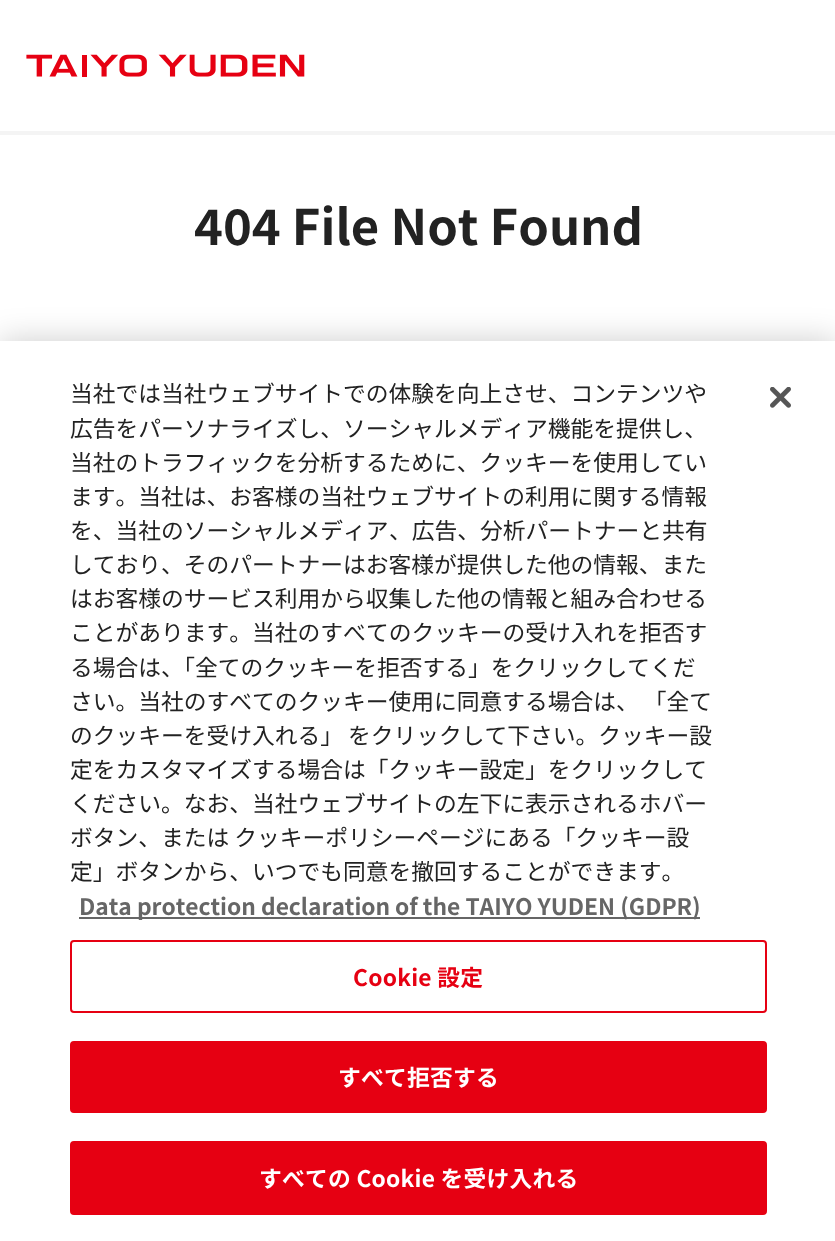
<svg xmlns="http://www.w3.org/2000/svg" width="835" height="1241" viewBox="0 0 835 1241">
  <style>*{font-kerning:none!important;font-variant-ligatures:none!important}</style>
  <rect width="100%" height="100%" fill="rgb(255,255,255)"/>
  <rect x="0" y="131" width="835" height="4" fill="rgb(244,244,244)"/>
  <image x="26" y="54" width="279" height="23" href="pic1.png"/>
  <text x="194" y="245" font-family="Noto Sans JP" font-size="49" font-weight="bold" fill="rgb(34,34,34)">404 File Not Found</text>
  <rect x="0" y="341" width="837" height="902" fill="rgba(0,0,0,0.2)" filter="blur(16px)"/>
  <rect x="0" y="341" width="835" height="900" fill="rgb(255,255,255)"/>
  <g font-family="Noto Sans JP" font-size="22.75" fill="rgb(34,34,34)">
    <text>
      <tspan x="70" y="402">当社では当社ウェブサイトでの体験を向上させ、コンテンツや</tspan>
      <tspan x="70" y="437">広告をパーソナライズし、ソーシャルメディア機能を提供し、</tspan>
      <tspan x="70" y="471">当社のトラフィックを分析するために、クッキーを使用してい</tspan>
      <tspan x="70" y="505">ます。当社は、お客様の当社ウェブサイトの利用に関する情報</tspan>
      <tspan x="70" y="539">を、当社のソーシャルメディア</tspan>
    </text>
    <text x="389" y="539">、広告、分析パートナーと共有</text>
    <text>
      <tspan x="70" y="573">しており、そのパートナーはお客様が提供した他の情報、また</tspan>
      <tspan x="70" y="607">はお客様のサービス利用から収集した他の情報と組み合わせる</tspan>
      <tspan x="70" y="641">ことがあります。当社のすべ</tspan>
    </text>
    <text x="366" y="641">てのクッキーの受け入れを拒否す</text>
    <text>
      <tspan x="70" y="676">る場合は、「全てのクッキーを拒否する」をクリックしてくだ</tspan>
      <tspan x="70" y="710">さい。当社のすべてのクッキー使用に同意する場合は、 「全て</tspan>
      <tspan x="70" y="744">のクッキーを受け入れる」 をクリックして下さい。クッキー設</tspan>
      <tspan x="70" y="778">定をカスタマイズする場合は「クッキー設定」をクリックして</tspan>
      <tspan x="70" y="812">ください。なお、当社ウェブサイトの左下に表示されるホバー</tspan>
      <tspan x="70" y="846">ボタン、または クッキーポリシーページにある「クッキー設</tspan>
      <tspan x="70" y="880">定」ボタンから、いつでも同意を撤回することができます。</tspan>
    </text>
  </g>
  <rect x="79" y="917" width="621" height="2" fill="rgb(102,102,102)"/>
  <text x="79" y="915" font-family="Noto Sans JP" font-size="22.75" font-weight="bold" fill="rgb(102,102,102)">Data protection declaration</text>
  <text x="395" y="915" font-family="Noto Sans JP" font-size="22.75" font-weight="bold" fill="rgb(102,102,102)">of the TAIYO YUDEN (GDPR)</text>
  <rect x="71" y="941" width="695" height="71" rx="3" fill="none" stroke="rgb(230,0,18)" stroke-width="2"/>
  <text x="353" y="986" font-family="Noto Sans JP" font-size="22.75" font-weight="bold" letter-spacing="0.25" fill="rgb(230,0,18)">Cookie 設定</text>
  <rect x="71" y="1042" width="695" height="70" rx="3" fill="rgb(230,0,18)" stroke="rgb(230,0,18)" stroke-width="2"/>
  <text x="338" y="1086" font-family="Noto Sans JP" font-size="22.75" font-weight="bold" letter-spacing="0.25" fill="rgb(255,255,255)">すべて拒否する</text>
  <rect x="71" y="1142" width="695" height="72" rx="3" fill="rgb(230,0,18)" stroke="rgb(230,0,18)" stroke-width="2"/>
  <text x="259" y="1187" font-family="Noto Sans JP" font-size="22.75" font-weight="bold" letter-spacing="0.25" fill="rgb(255,255,255)">すべての Cookie を受け入れる</text>
  <image x="770" y="387" width="21" height="21" href="pic2.png"/>
</svg>
